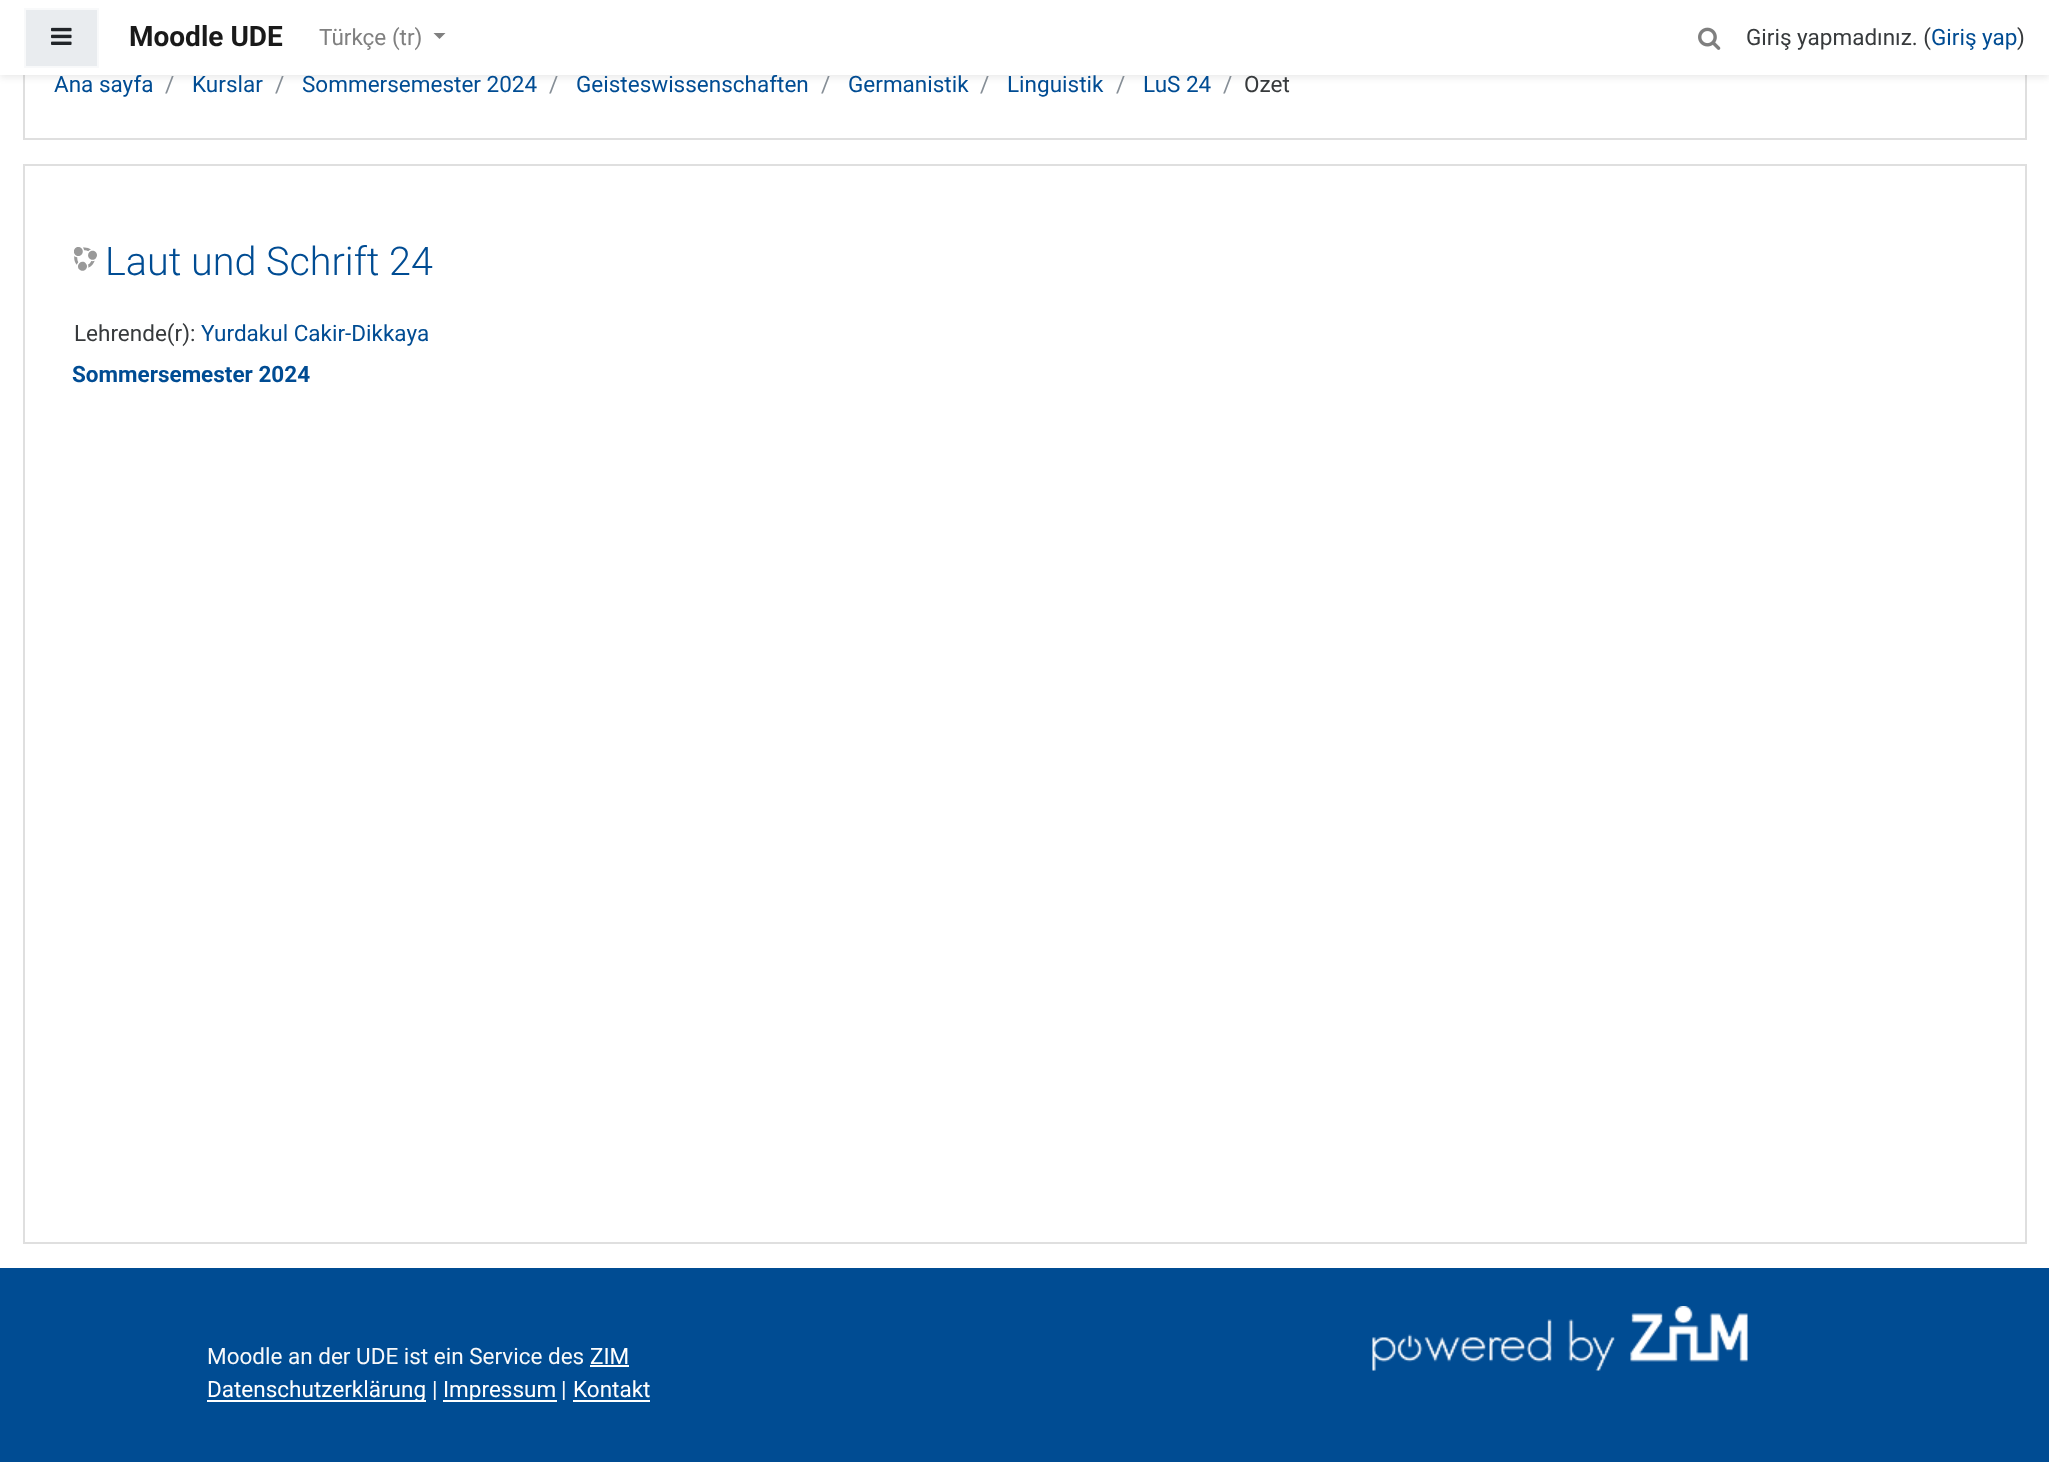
<svg xmlns="http://www.w3.org/2000/svg" width="2049" height="1462" viewBox="0 0 2049 1462">
  <rect width="100%" height="100%" fill="rgb(255,255,255)"/>
  <rect x="24" y="-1" width="2002" height="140" fill="none" stroke="rgb(223,223,223)" stroke-width="2"/>
  <rect x="0" y="3" width="2049" height="75" fill="rgba(0,0,0,0.08)" filter="blur(3px)"/>
  <g font-family="Roboto" font-size="22.5" fill="rgb(0,76,147)">
    <text x="54" y="92">Ana sayfa</text>
    <text x="576" y="92">Geisteswissenschaften</text>
  </g>
  <text x="1244" y="92" font-family="Roboto" font-size="22.5" fill="rgb(55,58,60)">Özet</text>
  <rect x="0" y="0" width="2049" height="75" fill="rgb(255,255,255)"/>
  <rect x="25" y="9" width="73" height="58" fill="rgb(233,236,239)" stroke="rgb(248,249,250)" stroke-width="2"/>
  <image x="51" y="27" width="21" height="18" href="pic1.png"/>
  <text x="129" y="46" font-family="Roboto" font-size="28" font-weight="bold" fill="rgb(26,26,26)">Moodle UDE</text>
  <text x="319" y="45" font-family="Roboto" font-size="22.5" fill="rgb(128,128,128)">Türkçe (tr)</text>
  <path d="M433.5 33H445.5L439.5 39Z" fill="rgb(128,128,128)"/>
  <image x="1698" y="27" width="23" height="23" href="pic2.png"/>
  <text x="1746" y="45" font-family="Roboto" font-size="22.5" fill="rgb(55,58,60)">Giriş yapmadınız. (</text>
  <text x="1931" y="45" font-family="Roboto" font-size="22.5" fill="rgb(0,76,147)">Giriş yap</text>
  <text x="2017" y="45" font-family="Roboto" font-size="22.5" fill="rgb(55,58,60)">)</text>
  <text x="165" y="92" font-family="Roboto" font-size="22.5" fill="rgb(134,142,150)">/</text>
  <text x="192" y="92" font-family="Roboto" font-size="22.5" fill="rgb(0,76,147)">Kurslar</text>
  <text x="275" y="92" font-family="Roboto" font-size="22.5" fill="rgb(134,142,150)">/</text>
  <text x="302" y="92" font-family="Roboto" font-size="22.5" fill="rgb(0,76,147)">Sommersemester 2024</text>
  <g font-family="Roboto" font-size="22.5" fill="rgb(134,142,150)">
    <text x="549" y="92">/</text>
    <text x="821" y="92">/</text>
  </g>
  <text x="848" y="92" font-family="Roboto" font-size="22.5" fill="rgb(0,76,147)">Germanistik</text>
  <text x="980" y="92" font-family="Roboto" font-size="22.5" fill="rgb(134,142,150)">/</text>
  <text x="1007" y="92" font-family="Roboto" font-size="22.5" fill="rgb(0,76,147)">Linguistik</text>
  <text x="1116" y="92" font-family="Roboto" font-size="22.5" fill="rgb(134,142,150)">/</text>
  <text x="1143" y="92" font-family="Roboto" font-size="22.5" fill="rgb(0,76,147)">LuS 24</text>
  <text x="1223" y="92" font-family="Roboto" font-size="22.5" fill="rgb(134,142,150)">/</text>
  <rect x="24" y="165" width="2002" height="1078" fill="none" stroke="rgb(223,223,223)" stroke-width="2"/>
  <image x="74" y="247" width="23" height="24" href="pic3.png"/>
  <text x="105" y="275" font-family="Roboto" font-size="39.5" font-weight="300" fill="rgb(0,76,147)">Laut und Schrift 24</text>
  <text x="74" y="341" font-family="Roboto" font-size="22.5" fill="rgb(55,58,60)">Lehrende(r):</text>
  <text x="201" y="341" font-family="Roboto" font-size="22.5" fill="rgb(0,76,147)">Yurdakul Cakir-Dikkaya</text>
  <text x="72" y="382" font-family="Roboto" font-size="22.5" font-weight="bold" fill="rgb(0,76,147)">Sommersemester 2024</text>
  <rect x="0" y="1268" width="2049" height="194" fill="rgb(0,76,147)"/>
  <text x="207" y="1364" font-family="Roboto" font-size="22.5" fill="rgb(248,249,250)">Moodle an der UDE ist ein Service des</text>
  <text x="590" y="1364" font-family="Roboto" font-size="22.5" fill="rgb(255,255,255)">ZIM</text>
  <rect x="590" y="1365" width="39" height="2" fill="rgb(255,255,255)"/>
  <rect x="207" y="1400" width="219" height="2" fill="rgb(255,255,255)"/>
  <text x="207" y="1397" font-family="Roboto" font-size="22.5" fill="rgb(255,255,255)">Datenschutzerklärung</text>
  <text x="432" y="1397" font-family="Roboto" font-size="22.5" fill="rgb(248,249,250)">|</text>
  <rect x="443" y="1400" width="114" height="2" fill="rgb(255,255,255)"/>
  <text x="443" y="1397" font-family="Roboto" font-size="22.5" fill="rgb(255,255,255)">Impressum</text>
  <text x="561" y="1397" font-family="Roboto" font-size="22.5" fill="rgb(248,249,250)">|</text>
  <text x="573" y="1397" font-family="Roboto" font-size="22.5" fill="rgb(255,255,255)">Kontakt</text>
  <rect x="573" y="1400" width="77" height="2" fill="rgb(255,255,255)"/>
  <image x="1372" y="1306" width="376" height="65" href="pic4.png"/>
</svg>
